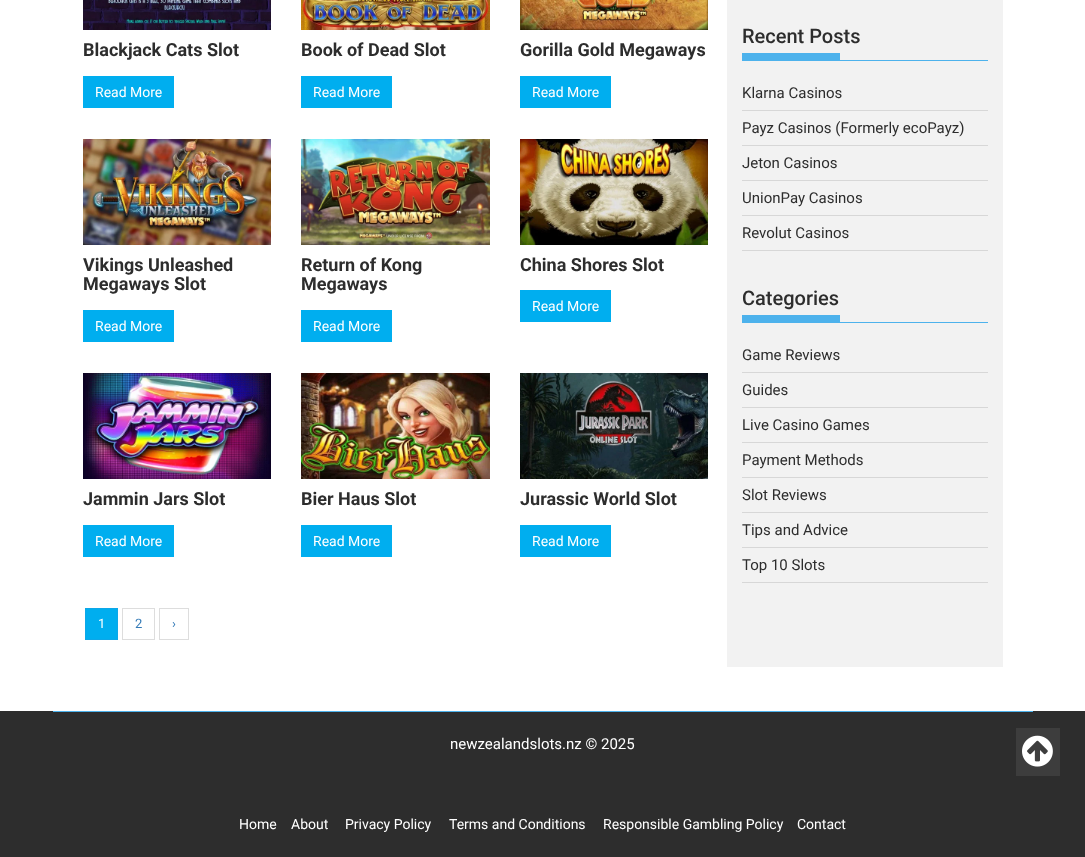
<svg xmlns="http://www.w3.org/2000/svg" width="1085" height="857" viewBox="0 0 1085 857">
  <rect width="100%" height="100%" fill="rgb(255,255,255)"/>
  <image x="83" y="0" width="188" height="30" href="pic1.png"/>
  <text x="83" y="56" font-family="Roboto" font-size="18" font-weight="bold" fill="rgb(45,45,45)">Blackjack Cats Slot</text>
  <rect x="83" y="76" width="91" height="32" fill="rgb(0,174,239)"/>
  <text x="95" y="97" font-family="Roboto" font-size="14" fill="rgb(255,255,255)">Read More</text>
  <image x="301" y="0" width="189" height="30" href="pic2.png"/>
  <text x="301" y="56" font-family="Roboto" font-size="18" font-weight="bold" fill="rgb(45,45,45)">Book of Dead Slot</text>
  <rect x="301" y="76" width="91" height="32" fill="rgb(0,174,239)"/>
  <text x="313" y="97" font-family="Roboto" font-size="14" fill="rgb(255,255,255)">Read More</text>
  <image x="520" y="0" width="188" height="30" href="pic3.png"/>
  <text x="520" y="56" font-family="Roboto" font-size="18" font-weight="bold" fill="rgb(45,45,45)">Gorilla Gold Megaways</text>
  <rect x="520" y="76" width="91" height="32" fill="rgb(0,174,239)"/>
  <text x="532" y="97" font-family="Roboto" font-size="14" fill="rgb(255,255,255)">Read More</text>
  <image x="83" y="139" width="188" height="106" href="pic4.png"/>
  <g font-family="Roboto" font-size="18" font-weight="bold" fill="rgb(45,45,45)">
    <text>
      <tspan x="83" y="271">Vikings Unleashed</tspan>
      <tspan x="83" y="290">Megaways Slot</tspan>
    </text>
  </g>
  <rect x="83" y="310" width="91" height="32" fill="rgb(0,174,239)"/>
  <text x="95" y="331" font-family="Roboto" font-size="14" fill="rgb(255,255,255)">Read More</text>
  <image x="301" y="139" width="189" height="106" href="pic5.png"/>
  <g font-family="Roboto" font-size="18" font-weight="bold" fill="rgb(45,45,45)">
    <text>
      <tspan x="301" y="271">Return of Kong</tspan>
      <tspan x="301" y="290">Megaways</tspan>
    </text>
  </g>
  <rect x="301" y="310" width="91" height="32" fill="rgb(0,174,239)"/>
  <text x="313" y="331" font-family="Roboto" font-size="14" fill="rgb(255,255,255)">Read More</text>
  <image x="520" y="139" width="188" height="106" href="pic6.png"/>
  <text x="520" y="271" font-family="Roboto" font-size="18" font-weight="bold" fill="rgb(45,45,45)">China Shores Slot</text>
  <rect x="520" y="290" width="91" height="32" fill="rgb(0,174,239)"/>
  <text x="532" y="311" font-family="Roboto" font-size="14" fill="rgb(255,255,255)">Read More</text>
  <image x="83" y="373" width="188" height="106" href="pic7.png"/>
  <text x="83" y="505" font-family="Roboto" font-size="18" font-weight="bold" fill="rgb(45,45,45)">Jammin Jars Slot</text>
  <rect x="83" y="525" width="91" height="32" fill="rgb(0,174,239)"/>
  <text x="95" y="546" font-family="Roboto" font-size="14" fill="rgb(255,255,255)">Read More</text>
  <image x="301" y="373" width="189" height="106" href="pic8.png"/>
  <text x="301" y="505" font-family="Roboto" font-size="18" font-weight="bold" fill="rgb(45,45,45)">Bier Haus Slot</text>
  <rect x="301" y="525" width="91" height="32" fill="rgb(0,174,239)"/>
  <text x="313" y="546" font-family="Roboto" font-size="14" fill="rgb(255,255,255)">Read More</text>
  <image x="520" y="373" width="188" height="106" href="pic9.png"/>
  <text x="520" y="505" font-family="Roboto" font-size="18" font-weight="bold" fill="rgb(45,45,45)">Jurassic World Slot</text>
  <rect x="520" y="525" width="91" height="32" fill="rgb(0,174,239)"/>
  <text x="532" y="546" font-family="Roboto" font-size="14" fill="rgb(255,255,255)">Read More</text>
  <rect x="85.5" y="608.5" width="32" height="31" fill="rgb(0,174,239)" stroke="rgb(13,167,232)"/>
  <text x="98" y="628" font-family="Roboto" font-size="13" fill="rgb(255,255,255)">1</text>
  <rect x="122.5" y="608.5" width="32" height="31" fill="none" stroke="rgb(221,221,221)"/>
  <text x="135" y="628" font-family="Roboto" font-size="13" fill="rgb(51,122,183)">2</text>
  <rect x="159.5" y="608.5" width="29" height="31" fill="none" stroke="rgb(221,221,221)"/>
  <text x="172" y="628" font-family="Roboto" font-size="13" fill="rgb(51,122,183)">›</text>
  <rect x="727" y="0" width="276" height="667" fill="rgb(242,242,242)"/>
  <rect x="742" y="60" width="246" height="1" fill="rgb(77,178,236)"/>
  <text x="742" y="43" font-family="Roboto" font-size="20" font-weight="500" fill="rgb(45,45,45)">Recent Posts</text>
  <rect x="742" y="53" width="98" height="7" fill="rgb(77,178,236)"/>
  <rect x="742" y="110" width="246" height="1" fill="rgb(215,215,215)"/>
  <text x="742" y="98" font-family="Roboto" font-size="15" fill="rgb(45,45,45)">Klarna Casinos</text>
  <rect x="742" y="145" width="246" height="1" fill="rgb(215,215,215)"/>
  <text x="742" y="133" font-family="Roboto" font-size="15" fill="rgb(45,45,45)">Payz Casinos (Formerly ecoPayz)</text>
  <rect x="742" y="180" width="246" height="1" fill="rgb(215,215,215)"/>
  <text x="742" y="168" font-family="Roboto" font-size="15" fill="rgb(45,45,45)">Jeton Casinos</text>
  <rect x="742" y="215" width="246" height="1" fill="rgb(215,215,215)"/>
  <text x="742" y="203" font-family="Roboto" font-size="15" fill="rgb(45,45,45)">UnionPay Casinos</text>
  <rect x="742" y="250" width="246" height="1" fill="rgb(215,215,215)"/>
  <text x="742" y="238" font-family="Roboto" font-size="15" fill="rgb(45,45,45)">Revolut Casinos</text>
  <rect x="742" y="322" width="246" height="1" fill="rgb(77,178,236)"/>
  <text x="742" y="305" font-family="Roboto" font-size="20" font-weight="500" fill="rgb(45,45,45)">Categories</text>
  <rect x="742" y="315" width="98" height="7" fill="rgb(77,178,236)"/>
  <rect x="742" y="372" width="246" height="1" fill="rgb(215,215,215)"/>
  <text x="742" y="360" font-family="Roboto" font-size="15" fill="rgb(45,45,45)">Game Reviews</text>
  <rect x="742" y="407" width="246" height="1" fill="rgb(215,215,215)"/>
  <text x="742" y="395" font-family="Roboto" font-size="15" fill="rgb(45,45,45)">Guides</text>
  <rect x="742" y="442" width="246" height="1" fill="rgb(215,215,215)"/>
  <text x="742" y="430" font-family="Roboto" font-size="15" fill="rgb(45,45,45)">Live Casino Games</text>
  <rect x="742" y="477" width="246" height="1" fill="rgb(215,215,215)"/>
  <text x="742" y="465" font-family="Roboto" font-size="15" fill="rgb(45,45,45)">Payment Methods</text>
  <rect x="742" y="512" width="246" height="1" fill="rgb(215,215,215)"/>
  <text x="742" y="500" font-family="Roboto" font-size="15" fill="rgb(45,45,45)">Slot Reviews</text>
  <rect x="742" y="547" width="246" height="1" fill="rgb(215,215,215)"/>
  <text x="742" y="535" font-family="Roboto" font-size="15" fill="rgb(45,45,45)">Tips and Advice</text>
  <rect x="742" y="582" width="246" height="1" fill="rgb(215,215,215)"/>
  <text x="742" y="570" font-family="Roboto" font-size="15" fill="rgb(45,45,45)">Top 10 Slots</text>
  <rect x="0" y="711" width="1085" height="146" fill="rgb(45,45,45)"/>
  <rect x="53" y="711" width="980" height="1" fill="rgb(77,178,236)"/>
  <text x="450" y="749" font-family="Roboto" font-size="15" fill="rgb(255,255,255)">newzealandslots.nz © 2025</text>
  <g font-family="Roboto" font-size="14" fill="rgb(255,255,255)">
    <text x="239" y="829">Home</text>
    <text x="291" y="829">About</text>
    <text x="345" y="829">Privacy Policy</text>
    <text x="449" y="829">Terms and Conditions</text>
    <text x="603" y="829">Responsible Gambling Policy</text>
    <text x="797" y="829">Contact</text>
  </g>
  <rect x="1016" y="728" width="44" height="48" fill="rgb(61,61,61)"/>
  <image x="1022" y="735" width="31" height="32" href="pic10.png"/>
</svg>
